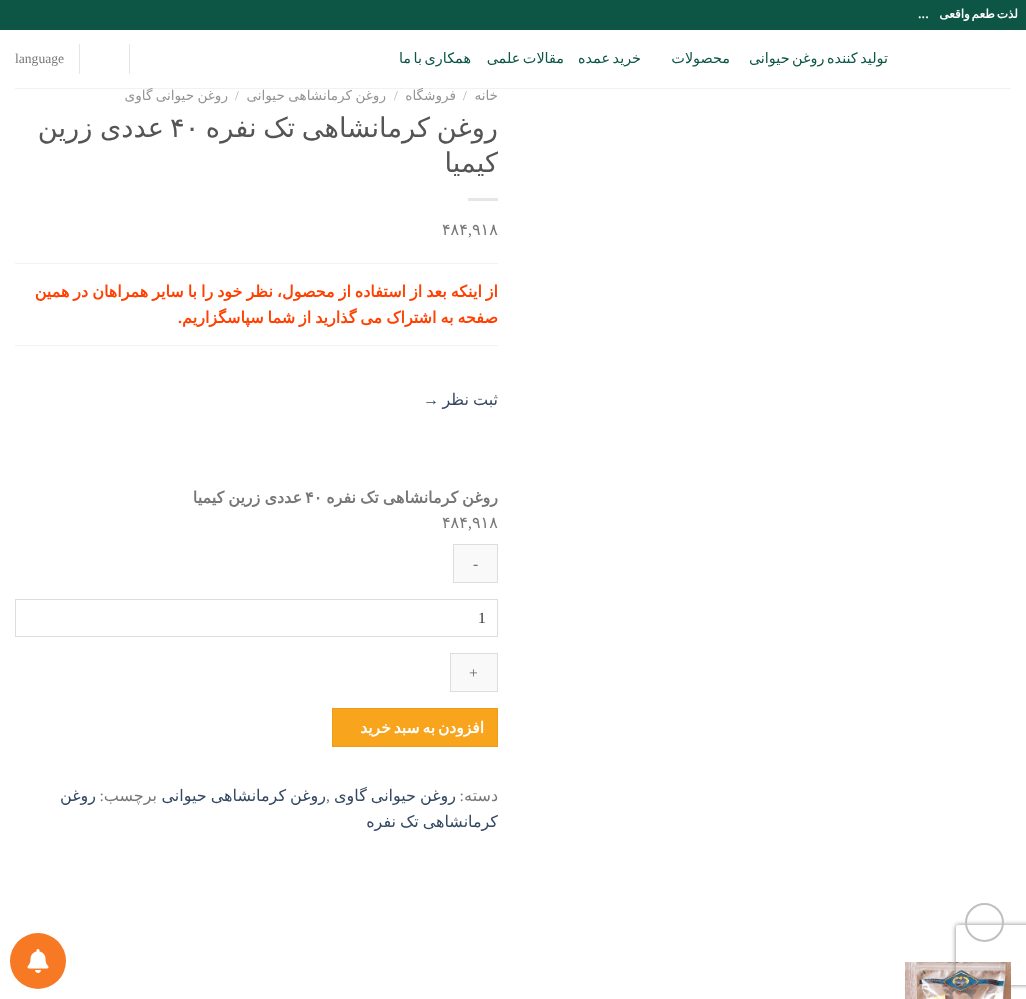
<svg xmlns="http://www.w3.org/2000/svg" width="1026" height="999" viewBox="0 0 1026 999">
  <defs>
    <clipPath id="clip1"><path d="M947 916H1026V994H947ZM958 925H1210C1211 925 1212 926 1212 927V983C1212 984 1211 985 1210 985H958C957 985 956 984 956 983V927C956 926 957 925 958 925Z" clip-rule="evenodd"/></clipPath>
  </defs>
  <rect width="100%" height="100%" fill="rgb(255,255,255)"/>
  <rect x="0" y="0" width="1026" height="30" fill="rgb(13,86,69)"/>
  <text x="1018" y="18" word-spacing="-2" font-family="DejaVu Sans" font-size="12" font-weight="bold" letter-spacing="0.6" direction="rtl" fill="rgb(255,255,255)">لذت طعم واقعی</text>
  <text x="929" y="18" font-family="Liberation Serif" font-size="12" font-weight="bold" letter-spacing="0.6" direction="rtl" fill="rgb(255,255,255)">...</text>
  <g font-family="DejaVu Sans" font-size="14.4" letter-spacing="0.25" direction="rtl" fill="rgb(13,86,69)">
    <text x="888" y="63" word-spacing="-2">تولید کننده روغن حیوانی</text>
    <text x="730" y="63">محصولات</text>
    <text x="641" y="63" word-spacing="-2">خرید عمده</text>
    <text x="564" y="63" word-spacing="-2">مقالات علمی</text>
    <text x="471" y="63" word-spacing="-2">همکاری با ما</text>
  </g>
  <rect x="129" y="44" width="1" height="30" fill="rgb(229,229,229)"/>
  <rect x="79" y="44" width="1" height="30" fill="rgb(229,229,229)"/>
  <text x="15" y="63" font-family="Liberation Serif" font-size="13.6" fill="rgb(119,119,119)">language</text>
  <rect x="15" y="88" width="996" height="1" fill="rgba(119,119,119,0.1)"/>
  <g font-family="DejaVu Sans" font-size="13.6" direction="rtl" fill="rgb(148,148,148)">
    <text x="456" y="100">فروشگاه</text>
    <text x="228" y="100" word-spacing="-1">روغن حیوانی گاوی</text>
  </g>
  <rect x="151" y="87" width="272" height="1" fill="rgba(255,255,255,0.89)"/>
  <text x="498" y="100" font-family="DejaVu Sans" font-size="13.6" direction="rtl" fill="rgb(148,148,148)">خانه</text>
  <g font-family="Liberation Serif" font-size="13.6" fill="rgb(178,178,178)">
    <text x="463" y="100">/</text>
    <text x="394" y="100">/</text>
  </g>
  <text x="386" y="100" word-spacing="-1" font-family="DejaVu Sans" font-size="13.6" direction="rtl" fill="rgb(148,148,148)">روغن کرمانشاهی حیوانی</text>
  <text x="235" y="100" font-family="Liberation Serif" font-size="13.6" fill="rgb(178,178,178)">/</text>
  <text x="498" y="137" word-spacing="-2" font-family="DejaVu Sans" font-size="27.25" direction="rtl" fill="rgb(85,85,85)">روغن کرمانشاهی تک نفره</text>
  <text x="170" y="137" font-family="DejaVu Sans" font-size="27.25" fill="rgb(85,85,85)">۴۰</text>
  <g font-family="DejaVu Sans" font-size="27.25" direction="rtl" fill="rgb(85,85,85)">
    <text x="164" y="137" word-spacing="-1">عددی زرین</text>
    <text x="498" y="172">کیمیا</text>
  </g>
  <rect x="468" y="198" width="30" height="3" fill="rgb(230,230,230)"/>
  <g font-family="DejaVu Sans" font-size="16" fill="rgb(119,119,119)">
    <text x="472" y="235">۹۱۸</text>
    <text x="442" y="235">۴۸۴</text>
  </g>
  <text x="468" y="235" font-family="Liberation Serif" font-size="16" fill="rgb(119,119,119)">,</text>
  <rect x="15" y="263" width="483" height="1" fill="rgb(242,242,242)"/>
  <g font-family="DejaVu Sans" font-size="16" font-weight="bold" direction="rtl" fill="rgb(255,64,0)">
    <text>
      <tspan x="498" y="297" word-spacing="-1.1">از اینکه بعد از استفاده از محصول، نظر خود را با سایر همراهان در همین</tspan>
      <tspan x="498" y="323" word-spacing="-1.1">صفحه به اشتراک می گذارید از شما سپاسگزاریم</tspan>
    </text>
  </g>
  <text x="182" y="323" font-family="Liberation Serif" font-size="16" font-weight="bold" direction="rtl" fill="rgb(255,64,0)">.</text>
  <rect x="15" y="345" width="483" height="1" fill="rgb(242,242,242)"/>
  <text x="498" y="405" word-spacing="-1" font-family="DejaVu Sans" font-size="16" direction="rtl" fill="rgb(51,72,98)">ثبت نظر</text>
  <text x="439" y="405" font-family="Liberation Serif" font-size="16" direction="rtl" fill="rgb(51,72,98)">→</text>
  <text x="498" y="503" word-spacing="-1.1" font-family="DejaVu Sans" font-size="16" font-weight="bold" direction="rtl" fill="rgb(119,119,119)">روغن کرمانشاهی تک نفره</text>
  <text x="305" y="503" font-family="DejaVu Sans" font-size="16" font-weight="bold" fill="rgb(119,119,119)">۴۰</text>
  <text x="302" y="503" word-spacing="-1" font-family="DejaVu Sans" font-size="16" font-weight="bold" direction="rtl" fill="rgb(119,119,119)">عددی زرین کیمیا</text>
  <g font-family="DejaVu Sans" font-size="16" fill="rgb(119,119,119)">
    <text x="472" y="528">۹۱۸</text>
    <text x="442" y="528">۴۸۴</text>
  </g>
  <text x="468" y="528" font-family="Liberation Serif" font-size="16" fill="rgb(119,119,119)">,</text>
  <rect x="453.5" y="544.5" width="44" height="38" fill="rgb(249,249,249)" stroke="rgb(221,221,221)"/>
  <text x="473" y="569" font-family="Liberation Serif" font-size="15.5" letter-spacing="0.5" fill="rgb(102,102,102)">-</text>
  <rect x="15.5" y="599.5" width="482" height="37" fill="none" stroke="rgb(221,221,221)"/>
  <text x="478" y="623" font-family="Liberation Serif" font-size="15.5" fill="rgb(51,51,51)">1</text>
  <rect x="450.5" y="653.5" width="47" height="38" fill="rgb(249,249,249)" stroke="rgb(221,221,221)"/>
  <text x="469" y="678" font-family="Liberation Serif" font-size="15.5" letter-spacing="0.5" fill="rgb(102,102,102)">+</text>
  <rect x="332.5" y="708.5" width="165" height="38" fill="rgb(248,164,28)" stroke="rgb(236,156,27)"/>
  <text x="484" y="733" word-spacing="-2" font-family="DejaVu Sans" font-size="15.5" font-weight="bold" letter-spacing="0.5" direction="rtl" fill="rgb(255,255,255)">افزودن به سبد خرید</text>
  <text x="498" y="801" font-family="DejaVu Sans" font-size="16" direction="rtl" fill="rgb(119,119,119)">دسته</text>
  <text x="464" y="801" font-family="Liberation Serif" font-size="16" direction="rtl" fill="rgb(119,119,119)">:</text>
  <text x="456" y="801" word-spacing="-1.1" font-family="DejaVu Sans" font-size="16" direction="rtl" fill="rgb(51,72,98)">روغن حیوانی گاوی</text>
  <text x="326" y="801" font-family="Liberation Serif" font-size="16" fill="rgb(119,119,119)">,</text>
  <text x="326" y="801" word-spacing="-1.1" font-family="DejaVu Sans" font-size="16" direction="rtl" fill="rgb(51,72,98)">روغن کرمانشاهی حیوانی</text>
  <text x="157" y="801" font-family="DejaVu Sans" font-size="16" direction="rtl" fill="rgb(119,119,119)">برچسب</text>
  <text x="104" y="801" font-family="Liberation Serif" font-size="16" direction="rtl" fill="rgb(119,119,119)">:</text>
  <g font-family="DejaVu Sans" font-size="16" direction="rtl" fill="rgb(51,72,98)">
    <text x="96" y="801">روغن</text>
    <text x="498" y="827" word-spacing="-1.1">کرمانشاهی تک نفره</text>
  </g>
  <image x="905" y="962" width="106" height="37" href="pic1.png"/>
  <g clip-path="url(#clip1)">
    <rect x="956" y="925" width="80" height="60" rx="2" fill="rgb(128,128,128)" filter="blur(2.5px)"/>
  </g>
  <circle cx="984.5" cy="922.5" r="18.5" fill="none" stroke="rgb(192,192,192)" stroke-width="2"/>
  <circle cx="38" cy="961" r="28" fill="rgb(247,121,36)"/>
  <image x="27" y="949" width="22" height="24" href="pic2.png"/>
</svg>
